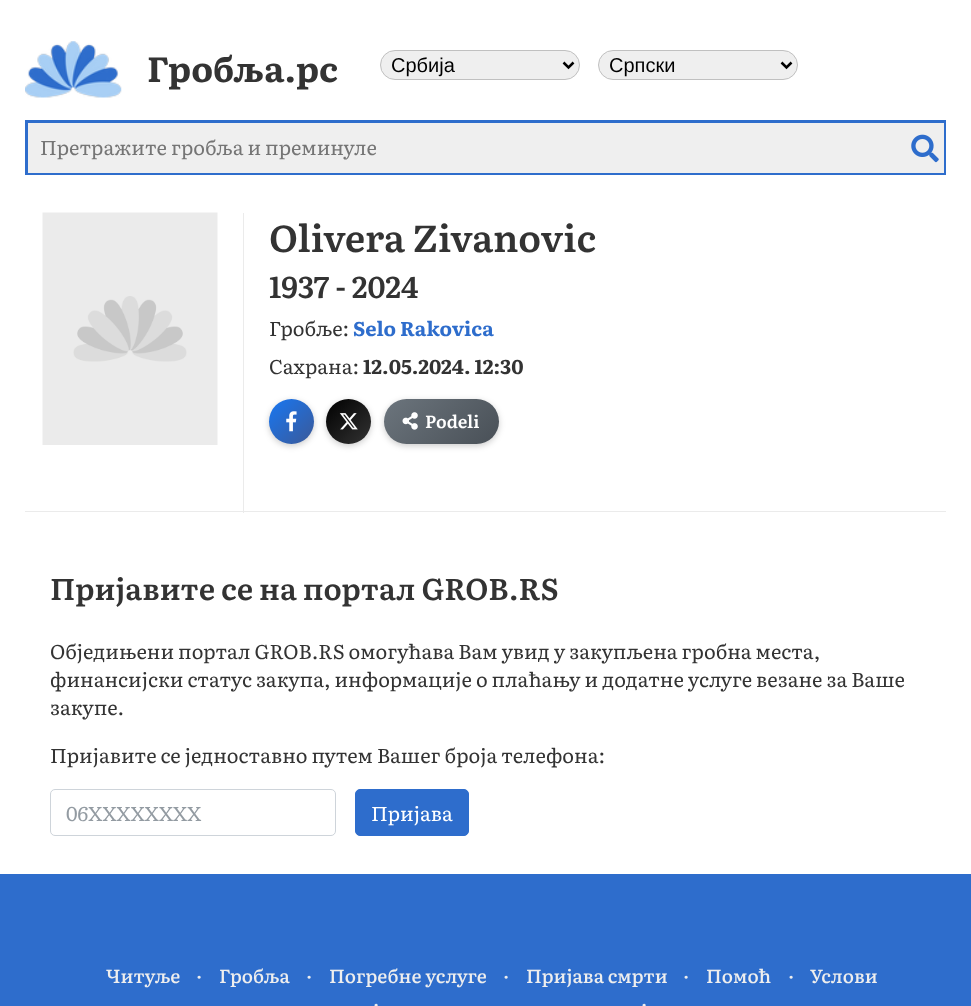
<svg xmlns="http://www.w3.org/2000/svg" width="971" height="1006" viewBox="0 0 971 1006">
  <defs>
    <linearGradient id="g1" gradientUnits="userSpaceOnUse" x1="269" y1="399" x2="314" y2="444"><stop offset="0" stop-color="rgb(24,119,242)"/><stop offset="1" stop-color="rgb(59,89,152)"/></linearGradient>
    <linearGradient id="g2" gradientUnits="userSpaceOnUse" x1="326" y1="399" x2="371" y2="444"><stop offset="0" stop-color="rgb(0,0,0)"/><stop offset="1" stop-color="rgb(51,51,51)"/></linearGradient>
    <linearGradient id="g3" gradientUnits="userSpaceOnUse" x1="401" y1="381" x2="481" y2="461"><stop offset="0" stop-color="rgb(108,117,125)"/><stop offset="1" stop-color="rgb(73,80,87)"/></linearGradient>
  </defs>
  <rect width="100%" height="100%" fill="rgb(255,255,255)"/>
  <image x="25" y="41" width="97" height="57" href="pic1.png"/>
  <text x="147" y="82" font-family="Literata" font-size="35" font-weight="bold" fill="rgb(51,51,51)">Гробља.рс</text>
  <rect x="380.5" y="50.5" width="199" height="29" rx="14.5" fill="rgb(239,239,239)" stroke="rgb(192,192,192)"/>
  <path d="M563.5 62.5L568.5 67.5L573.5 62.5" fill="none" stroke="rgb(0,0,0)" stroke-width="2.5"/>
  <text x="391" y="72" font-family="Liberation Sans" font-size="20" fill="rgb(0,0,0)">Србија</text>
  <rect x="598.5" y="50.5" width="199" height="29" rx="14.5" fill="rgb(239,239,239)" stroke="rgb(192,192,192)"/>
  <path d="M781.5 62.5L786.5 67.5L791.5 62.5" fill="none" stroke="rgb(0,0,0)" stroke-width="2.5"/>
  <text x="609" y="72" font-family="Liberation Sans" font-size="20" fill="rgb(0,0,0)">Српски</text>
  <rect x="25" y="120" width="921" height="3" fill="rgb(46,109,204)"/>
  <rect x="25" y="173" width="921" height="2" fill="rgb(46,109,204)"/>
  <rect x="28" y="123" width="916" height="50" fill="rgb(239,239,239)"/>
  <rect x="944" y="123" width="2" height="50" fill="rgb(46,109,204)"/>
  <rect x="25" y="123" width="3" height="50" fill="rgb(46,109,204)"/>
  <text x="40" y="155" font-family="Literata" font-size="20" fill="rgb(117,117,117)">Претражите гробља и преминуле</text>
  <image x="911" y="134" width="28" height="29" href="pic2.png"/>
  <rect x="25" y="511" width="921" height="1" fill="rgb(235,235,235)"/>
  <image x="42" y="212" width="176" height="233" href="pic3.png"/>
  <rect x="243" y="213" width="1" height="300" fill="rgb(235,235,235)"/>
  <text x="269" y="252" font-family="Literata" font-size="37.5" font-weight="600" fill="rgb(51,51,51)">Olivera Zivanovic</text>
  <text x="269" y="298" font-family="Literata" font-size="30" font-weight="600" fill="rgb(51,51,51)">1937 - 2024</text>
  <text x="269" y="336" font-family="Literata" font-size="20" fill="rgb(51,51,51)">Гробље:</text>
  <text x="353" y="336" font-family="Literata" font-size="20" font-weight="bold" fill="rgb(46,109,204)">Selo Rakovica</text>
  <text x="269" y="374" font-family="Literata" font-size="20" fill="rgb(51,51,51)">Сахрана:</text>
  <text x="363" y="374" font-family="Literata" font-size="20" font-weight="bold" fill="rgb(51,51,51)">12.05.2024. 12:30</text>
  <rect x="269" y="401" width="45" height="45" rx="22.5" fill="rgba(0,0,0,0.2)" filter="blur(3px)"/>
  <circle cx="291.5" cy="421.5" r="22.5" fill="url(#g1)"/>
  <image x="286" y="411" width="11" height="21" href="pic4.png"/>
  <rect x="326" y="401" width="45" height="45" rx="22.5" fill="rgba(0,0,0,0.2)" filter="blur(3px)"/>
  <circle cx="348.5" cy="421.5" r="22.5" fill="url(#g2)"/>
  <image x="339" y="413" width="19" height="17" href="pic5.png"/>
  <rect x="384" y="401" width="115" height="45" rx="22.5" fill="rgba(0,0,0,0.2)" filter="blur(3px)"/>
  <rect x="384" y="399" width="115" height="45" rx="22.5" fill="url(#g3)"/>
  <image x="402" y="412" width="16" height="18" href="pic6.png"/>
  <text x="425" y="428" font-family="Literata" font-size="17.5" font-weight="600" fill="rgb(255,255,255)">Podeli</text>
  <text x="50" y="600" font-family="Literata" font-size="30" font-weight="600" fill="rgb(51,51,51)">Пријавите се на портал GROB.RS</text>
  <g font-family="Literata" font-size="20" fill="rgb(51,51,51)">
    <text>
      <tspan x="50" y="659">Обједињени портал GROB.RS омогућава Вам увид у закупљена гробна места,</tspan>
      <tspan x="50" y="687">финансијски статус закупа, информације о плаћању и додатне услуге везане за Ваше</tspan>
      <tspan x="50" y="715">закупе.</tspan>
    </text>
    <text x="50" y="763">Пријавите се једноставно путем Вашег броја телефона:</text>
  </g>
  <rect x="50.5" y="789.5" width="285" height="46" rx="4.5" fill="none" stroke="rgb(206,212,218)"/>
  <text x="66" y="821" font-family="Literata" font-size="20" fill="rgb(147,155,162)">06XXXXXXXX</text>
  <rect x="355.5" y="789.5" width="113" height="46" rx="4.5" fill="rgb(46,109,204)" stroke="rgb(46,109,204)"/>
  <text x="371" y="821" font-family="Literata" font-size="20" fill="rgb(255,255,255)">Пријава</text>
  <rect x="0" y="874" width="971" height="132" fill="rgb(46,109,204)"/>
  <g font-family="Literata" font-size="18.75" font-weight="500" fill="rgb(238,238,238)">
    <text x="106" y="983">Читуље</text>
    <text x="196" y="983">·</text>
    <text x="219" y="983">Гробља</text>
    <text x="306" y="983">·</text>
    <text x="329" y="983">Погребне услуге</text>
    <text x="503" y="983">·</text>
    <text x="526" y="983">Пријава смрти</text>
    <text x="683" y="983">·</text>
    <text x="706" y="983">Помоћ</text>
    <text x="788" y="983">·</text>
    <text x="810" y="983">Услови</text>
    <text x="373" y="1011">·</text>
    <text x="641" y="1011">·</text>
  </g>
</svg>
